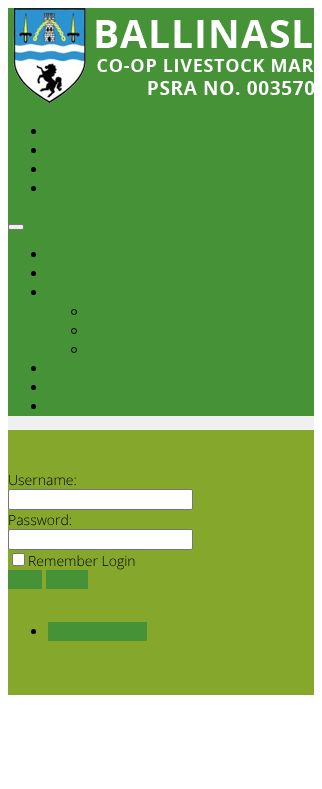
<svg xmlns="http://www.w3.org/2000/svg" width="322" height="789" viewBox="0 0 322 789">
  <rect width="100%" height="100%" fill="rgb(255,255,255)"/>
  <rect x="8" y="416" width="306" height="14" fill="rgb(240,240,240)"/>
  <rect x="8" y="8" width="306" height="408" fill="rgb(70,146,55)"/>
  <image x="13" y="8" width="301" height="95" href="pic1.png"/>
  <circle cx="33.5" cy="131.5" r="2.5" fill="rgb(0,0,0)"/>
  <circle cx="33.5" cy="150.5" r="2.5" fill="rgb(0,0,0)"/>
  <circle cx="33.5" cy="169.5" r="2.5" fill="rgb(0,0,0)"/>
  <circle cx="33.5" cy="188.5" r="2.5" fill="rgb(0,0,0)"/>
  <rect x="8.5" y="224.5" width="15" height="5" rx="1.5" fill="rgb(239,239,239)" stroke="rgb(118,118,118)"/>
  <circle cx="33.5" cy="254.5" r="2.5" fill="rgb(0,0,0)"/>
  <circle cx="33.5" cy="273.5" r="2.5" fill="rgb(0,0,0)"/>
  <circle cx="33.5" cy="292.5" r="2.5" fill="rgb(0,0,0)"/>
  <circle cx="74" cy="312" r="2.5" fill="none" stroke="rgb(0,0,0)"/>
  <circle cx="74" cy="331" r="2.5" fill="none" stroke="rgb(0,0,0)"/>
  <circle cx="74" cy="350" r="2.5" fill="none" stroke="rgb(0,0,0)"/>
  <circle cx="33.5" cy="368.5" r="2.5" fill="rgb(0,0,0)"/>
  <circle cx="33.5" cy="387.5" r="2.5" fill="rgb(0,0,0)"/>
  <circle cx="33.5" cy="406.5" r="2.5" fill="rgb(0,0,0)"/>
  <rect x="8" y="430" width="306" height="265" fill="rgb(133,167,44)"/>
  <text x="8" y="485" font-family="Open Sans" font-size="14" font-weight="300" fill="rgb(0,0,0)">Username:</text>
  <rect x="8.5" y="489.5" width="184" height="20" rx="1.5" fill="rgb(255,255,255)" stroke="rgb(118,118,118)"/>
  <text x="8" y="525" font-family="Open Sans" font-size="14" font-weight="300" fill="rgb(0,0,0)">Password:</text>
  <rect x="8.5" y="529.5" width="184" height="20" rx="1.5" fill="rgb(255,255,255)" stroke="rgb(118,118,118)"/>
  <rect x="12.5" y="553.5" width="12" height="12" rx="1.5" fill="rgb(255,255,255)" stroke="rgb(118,118,118)"/>
  <text x="28" y="566" font-family="Open Sans" font-size="14" font-weight="300" fill="rgb(0,0,0)">Remember Login</text>
  <rect x="8" y="570" width="34" height="19" fill="rgb(70,146,55)"/>
  <rect x="46" y="570" width="42" height="19" fill="rgb(70,146,55)"/>
  <circle cx="33.5" cy="631.5" r="2.5" fill="rgb(0,0,0)"/>
  <rect x="48" y="622" width="99" height="19" fill="rgb(70,146,55)"/>
</svg>
